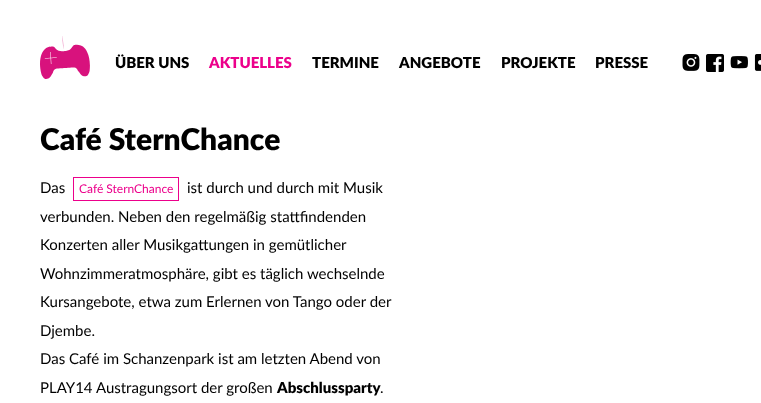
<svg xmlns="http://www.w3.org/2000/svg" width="761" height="403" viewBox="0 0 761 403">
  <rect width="100%" height="100%" fill="rgb(255,255,255)"/>
  <image x="40" y="36" width="50" height="43" href="pic1.png"/>
  <text x="115" y="68" font-family="Lato" font-size="15" font-weight="900" fill="rgb(0,0,0)">ÜBER UNS</text>
  <text x="209" y="68" font-family="Lato" font-size="15" font-weight="900" fill="rgb(236,0,139)">AKTUELLES</text>
  <g font-family="Lato" font-size="15" font-weight="900" fill="rgb(0,0,0)">
    <text x="312" y="68">TERMINE</text>
    <text x="399" y="68">ANGEBOTE</text>
    <text x="501" y="68">PROJEKTE</text>
    <text x="595" y="68">PRESSE</text>
  </g>
  <image x="682" y="54" width="18" height="17" href="pic2.png"/>
  <image x="706" y="54" width="18" height="18" href="pic3.png"/>
  <image x="730" y="56" width="18" height="13" href="pic4.png"/>
  <image x="754" y="54" width="7" height="17" href="pic5.png"/>
  <text x="40" y="150" font-family="Lato" font-size="30" font-weight="900" fill="rgb(0,0,0)">Café SternChance</text>
  <text x="40" y="193" font-family="Lato" font-size="15" fill="rgb(0,0,0)">Das</text>
  <rect x="73.5" y="177.5" width="105" height="23" fill="none" stroke="rgb(236,0,139)"/>
  <text x="79" y="193" font-family="Lato" font-size="12" fill="rgb(236,0,139)">Café SternChance</text>
  <g font-family="Lato" font-size="15" fill="rgb(0,0,0)">
    <text x="187" y="193">ist durch und durch mit Musik</text>
    <text>
      <tspan x="40" y="222">verbunden. Neben den regelmäßig stattfindenden</tspan>
      <tspan x="40" y="250">Konzerten aller Musikgattungen in gemütlicher</tspan>
      <tspan x="40" y="279">Wohnzimmeratmosphäre, gibt es täglich wechselnde</tspan>
      <tspan x="40" y="307">Kursangebote, etwa zum Erlernen von Tango oder der</tspan>
      <tspan x="40" y="336">Djembe.</tspan>
      <tspan x="40" y="364">Das Café im Schanzenpark ist am letzten Abend von</tspan>
      <tspan x="40" y="393">PLAY14 Austragungsort der großen</tspan>
    </text>
  </g>
  <text x="277" y="393" font-family="Lato" font-size="15" font-weight="900" fill="rgb(0,0,0)">Abschlussparty</text>
  <text x="380" y="393" font-family="Lato" font-size="15" fill="rgb(0,0,0)">.</text>
</svg>
